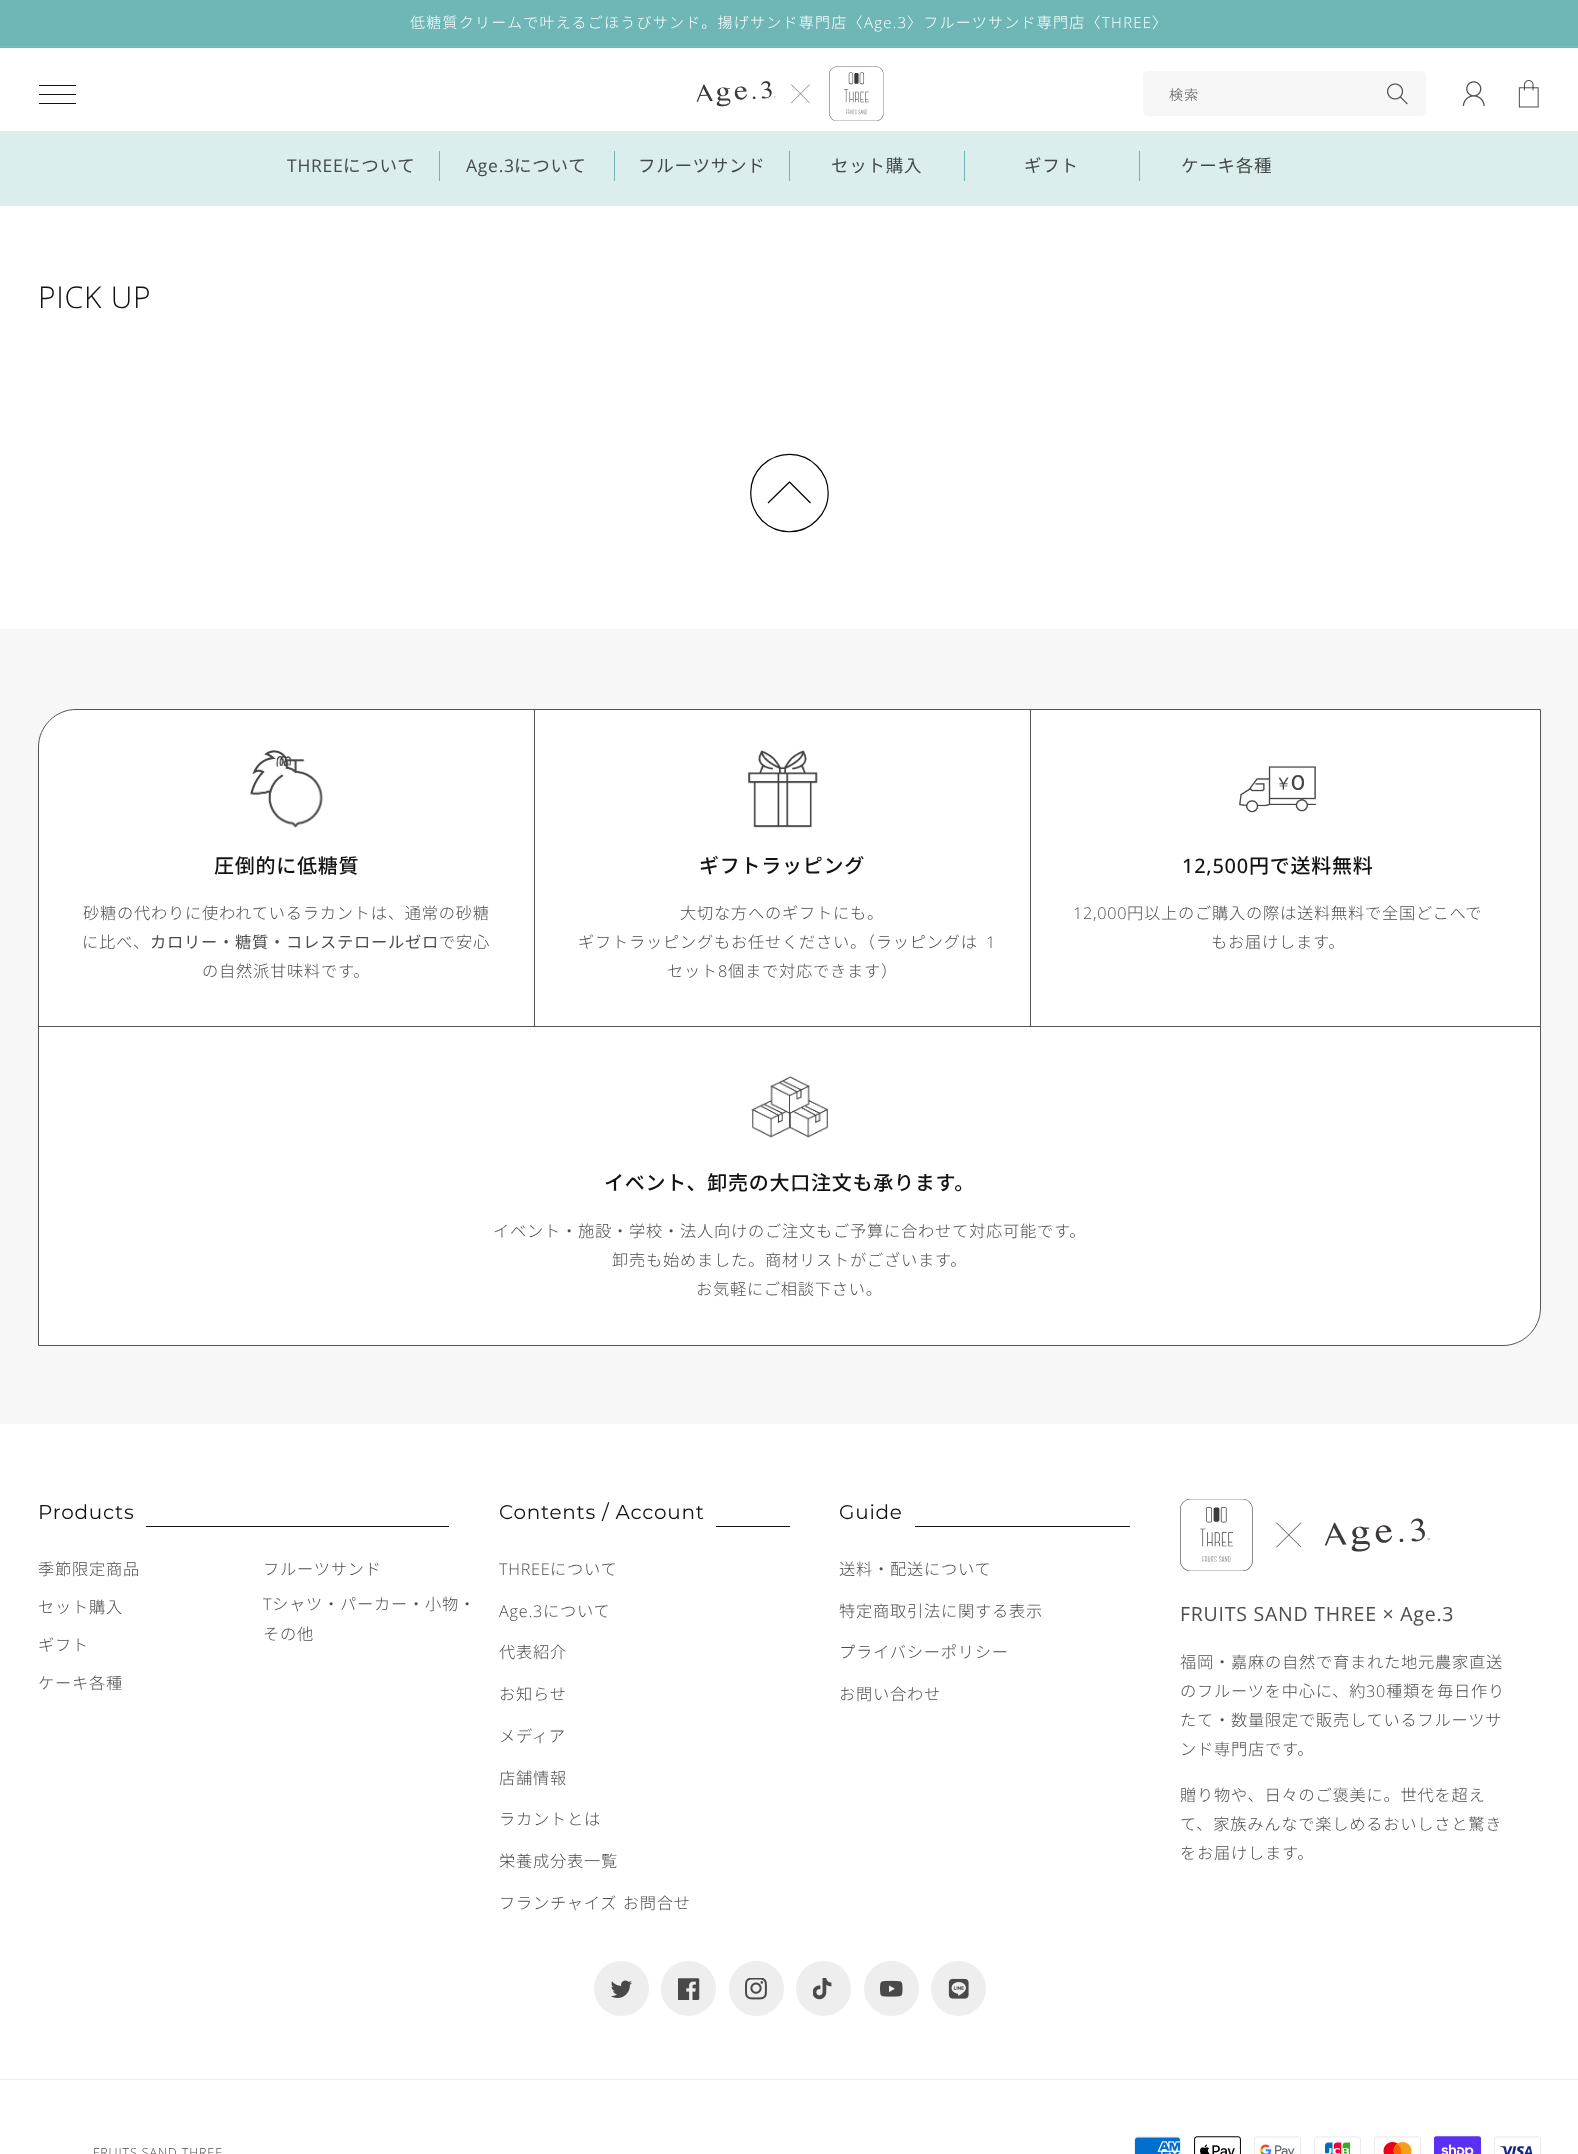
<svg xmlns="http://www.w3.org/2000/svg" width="1578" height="2154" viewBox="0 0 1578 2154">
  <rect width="100%" height="100%" fill="rgb(255,255,255)"/>
  <rect x="0" y="0" width="1578" height="48" fill="rgb(111,183,183)"/>
  <rect x="0" y="46" width="1578" height="1" fill="rgb(123,189,189)"/>
  <text x="410" y="28" font-family="Noto Sans JP" font-size="15" font-weight="300" letter-spacing="1.25" fill="rgb(255,255,255)">低糖質クリームで叶えるごほうびサンド。揚げサンド専門店〈</text>
  <text x="864" y="28" font-family="Open Sans" font-size="15" font-weight="300" letter-spacing="1.25" fill="rgb(255,255,255)">Age.3</text>
  <text x="907" y="28" font-family="Noto Sans JP" font-size="15" font-weight="300" letter-spacing="1.25" fill="rgb(255,255,255)">〉フルーツサンド専門店〈</text>
  <text x="1102" y="28" font-family="Open Sans" font-size="15" font-weight="300" letter-spacing="1.25" fill="rgb(255,255,255)">THREE</text>
  <text x="1152" y="28" font-family="Noto Sans JP" font-size="15" font-weight="300" letter-spacing="1.25" fill="rgb(255,255,255)">〉</text>
  <rect x="39" y="85" width="37" height="1" fill="rgb(18,18,18)"/>
  <rect x="39" y="94" width="37" height="1" fill="rgb(18,18,18)"/>
  <rect x="39" y="103" width="37" height="1" fill="rgb(18,18,18)"/>
  <image x="696" y="66" width="188" height="55" href="pic1.png"/>
  <rect x="1143" y="71" width="283" height="45" rx="5" fill="rgb(247,247,247)"/>
  <text x="1169" y="100" font-family="Noto Sans JP" font-size="14" font-weight="300" letter-spacing="1.25" fill="rgb(77,77,77)">検索</text>
  <image x="1387" y="83" width="21" height="22" href="pic2.png"/>
  <image x="1462" y="81" width="23" height="25" href="pic3.png"/>
  <image x="1518" y="80" width="21" height="28" href="pic4.png"/>
  <rect x="0" y="131" width="1578" height="75" fill="rgb(219,237,237)"/>
  <rect x="439" y="151" width="1" height="30" fill="rgb(111,183,183)"/>
  <text x="287" y="172" font-family="Open Sans" font-size="17.5" letter-spacing="0.75" fill="rgb(68,73,73)">THREE</text>
  <text x="343" y="172" font-family="Noto Sans JP" font-size="17.5" letter-spacing="0.75" fill="rgb(68,73,73)">について</text>
  <rect x="614" y="151" width="1" height="30" fill="rgb(111,183,183)"/>
  <text x="466" y="172" font-family="Open Sans" font-size="17.5" letter-spacing="0.75" fill="rgb(68,73,73)">Age.3</text>
  <text x="514" y="172" font-family="Noto Sans JP" font-size="17.5" letter-spacing="0.75" fill="rgb(68,73,73)">について</text>
  <rect x="789" y="151" width="1" height="30" fill="rgb(111,183,183)"/>
  <text x="638" y="172" font-family="Noto Sans JP" font-size="17.5" letter-spacing="0.75" fill="rgb(68,73,73)">フルーツサンド</text>
  <rect x="964" y="151" width="1" height="30" fill="rgb(111,183,183)"/>
  <text x="831" y="172" font-family="Noto Sans JP" font-size="17.5" letter-spacing="0.75" fill="rgb(68,73,73)">セット購入</text>
  <rect x="1139" y="151" width="1" height="30" fill="rgb(111,183,183)"/>
  <g font-family="Noto Sans JP" font-size="17.5" letter-spacing="0.75" fill="rgb(68,73,73)">
    <text x="1024" y="172">ギフト</text>
    <text x="1181" y="172">ケーキ各種</text>
  </g>
  <text x="38" y="308" font-family="Open Sans" font-size="30" font-weight="300" letter-spacing="0.75" fill="rgb(18,18,18)">PICK UP</text>
  <path d="M768 503L789.5 482L810.5 503" fill="none" stroke="rgb(0,0,0)" stroke-width="1.2" stroke-linejoin="bevel"/>
  <path d="M762 465.5C777.5 450.5 802 450.5 817 466C832 481 832 505.5 816.5 520.5C801.5 535.5 777 535.5 762 520.5C747 505 747 480.5 762 465.5Z" fill="none" stroke="rgb(0,0,0)" stroke-width="1.2"/>
  <rect x="0" y="629" width="1578" height="795" fill="rgb(247,247,247)"/>
  <path d="M76 709.5H1540.5V1308C1540.5 1328.5 1523.5 1345.5 1503 1345.5H38.5V747C38.5 726.5 55.5 709.5 76 709.5Z" fill="rgb(255,255,255)" stroke="rgb(85,85,85)"/>
  <image x="250" y="750" width="73" height="78" href="pic5.png"/>
  <text x="214" y="873" font-family="Noto Sans JP" font-size="20" font-weight="500" letter-spacing="0.75" fill="rgb(18,18,18)">圧倒的に低糖質</text>
  <g font-family="Noto Sans JP" font-size="16.25" font-weight="300" letter-spacing="0.75" fill="rgb(77,77,77)">
    <text x="83" y="919">砂糖の代わりに使われているラカントは、通常の砂糖</text>
    <text x="82" y="948">に比べ、</text>
  </g>
  <text x="150" y="948" font-family="Noto Sans JP" font-size="16.25" letter-spacing="0.75" fill="rgb(77,77,77)">カロリー・糖質・コレステロールゼロ</text>
  <g font-family="Noto Sans JP" font-size="16.25" font-weight="300" letter-spacing="0.75" fill="rgb(77,77,77)">
    <text x="439" y="948">で安心</text>
    <text x="202" y="977">の自然派甘味料です。</text>
  </g>
  <rect x="534" y="710" width="1" height="316" fill="rgb(85,85,85)"/>
  <image x="748" y="750" width="70" height="78" href="pic6.png"/>
  <text x="699" y="873" font-family="Noto Sans JP" font-size="20" font-weight="500" letter-spacing="0.75" fill="rgb(18,18,18)">ギフトラッピング</text>
  <g font-family="Noto Sans JP" font-size="16.25" font-weight="300" letter-spacing="0.75" fill="rgb(77,77,77)">
    <text x="680" y="919">大切な方へのギフトにも。</text>
    <text x="578" y="948">ギフトラッピングもお任せください。（ラッピングは</text>
  </g>
  <text x="986" y="948" font-family="Open Sans" font-size="16.25" font-weight="300" letter-spacing="0.75" fill="rgb(77,77,77)">1</text>
  <text x="667" y="977" font-family="Noto Sans JP" font-size="16.25" font-weight="300" letter-spacing="0.75" fill="rgb(77,77,77)">セット</text>
  <text x="718" y="977" font-family="Open Sans" font-size="16.25" font-weight="300" letter-spacing="0.75" fill="rgb(77,77,77)">8</text>
  <text x="728" y="977" font-family="Noto Sans JP" font-size="16.25" font-weight="300" letter-spacing="0.75" fill="rgb(77,77,77)">個まで対応できます）</text>
  <rect x="1030" y="710" width="1" height="316" fill="rgb(85,85,85)"/>
  <image x="1238" y="766" width="79" height="47" href="pic7.png"/>
  <text x="1182" y="873" font-family="Open Sans" font-size="20" font-weight="500" letter-spacing="0.75" fill="rgb(18,18,18)">12,500</text>
  <text x="1249" y="873" font-family="Noto Sans JP" font-size="20" font-weight="500" letter-spacing="0.75" fill="rgb(18,18,18)">円で送料無料</text>
  <text x="1073" y="919" font-family="Open Sans" font-size="16.25" font-weight="300" letter-spacing="0.75" fill="rgb(77,77,77)">12,000</text>
  <g font-family="Noto Sans JP" font-size="16.25" font-weight="300" letter-spacing="0.75" fill="rgb(77,77,77)">
    <text x="1127" y="919">円以上のご購⼊の際は送料無料で全国どこへで</text>
    <text x="1211" y="948">もお届けします。</text>
  </g>
  <rect x="39" y="1026" width="1501" height="1" fill="rgb(85,85,85)"/>
  <image x="751" y="1076" width="78" height="62" href="pic8.png"/>
  <text x="604" y="1190" font-family="Noto Sans JP" font-size="20" font-weight="500" letter-spacing="0.75" fill="rgb(18,18,18)">イベント、卸売の⼤⼝注⽂も承ります。</text>
  <g font-family="Noto Sans JP" font-size="16.25" font-weight="300" letter-spacing="0.75" fill="rgb(77,77,77)">
    <text x="493" y="1237">イベント‧施設‧学校‧法⼈向けのご注⽂もご予算に合わせて対応可能です。</text>
    <text x="612" y="1266">卸売も始めました。商材リストがございます。</text>
    <text x="696" y="1295">お気軽にご相談下さい。</text>
  </g>
  <rect x="146" y="1526" width="303" height="1" fill="rgb(18,18,18)"/>
  <text x="38" y="1519" font-family="Montserrat" font-size="20" letter-spacing="0.75" fill="rgb(18,18,18)">Products</text>
  <g font-family="Noto Sans JP" font-size="16.25" font-weight="300" letter-spacing="0.75" fill="rgb(77,77,77)">
    <text x="38" y="1575">季節限定商品</text>
    <text x="38" y="1613">セット購入</text>
    <text x="38" y="1651">ギフト</text>
    <text x="38" y="1689">ケーキ各種</text>
    <text x="263" y="1575">フルーツサンド</text>
  </g>
  <text x="263" y="1610" font-family="Open Sans" font-size="16.25" font-weight="300" letter-spacing="0.75" fill="rgb(77,77,77)">T</text>
  <g font-family="Noto Sans JP" font-size="16.25" font-weight="300" letter-spacing="0.75" fill="rgb(77,77,77)">
    <text x="272" y="1610">シャツ・パーカー・小物・</text>
    <text x="263" y="1640">その他</text>
  </g>
  <rect x="716" y="1526" width="74" height="1" fill="rgb(18,18,18)"/>
  <text x="499" y="1519" font-family="Montserrat" font-size="20" letter-spacing="0.75" fill="rgb(18,18,18)">Contents / Account</text>
  <text x="499" y="1575" font-family="Open Sans" font-size="16.25" font-weight="300" letter-spacing="0.75" fill="rgb(77,77,77)">THREE</text>
  <text x="550" y="1575" font-family="Noto Sans JP" font-size="16.25" font-weight="300" letter-spacing="0.75" fill="rgb(77,77,77)">について</text>
  <text x="499" y="1617" font-family="Open Sans" font-size="16.25" font-weight="300" letter-spacing="0.75" fill="rgb(77,77,77)">Age.3</text>
  <g font-family="Noto Sans JP" font-size="16.25" font-weight="300" letter-spacing="0.75" fill="rgb(77,77,77)">
    <text x="543" y="1617">について</text>
    <text x="499" y="1658">代表紹介</text>
    <text x="499" y="1700">お知らせ</text>
    <text x="499" y="1742">メディア</text>
    <text x="499" y="1784">店舗情報</text>
    <text x="499" y="1825">ラカントとは</text>
    <text x="499" y="1867">栄養成分表一覧</text>
    <text x="499" y="1909" word-spacing="1">フランチャイズ お問合せ</text>
  </g>
  <rect x="915" y="1526" width="215" height="1" fill="rgb(18,18,18)"/>
  <text x="839" y="1519" font-family="Montserrat" font-size="20" letter-spacing="0.75" fill="rgb(18,18,18)">Guide</text>
  <g font-family="Noto Sans JP" font-size="16.25" font-weight="300" letter-spacing="0.75" fill="rgb(77,77,77)">
    <text x="839" y="1575">送料・配送について</text>
    <text x="839" y="1617">特定商取引法に関する表示</text>
    <text x="839" y="1658">プライバシーポリシー</text>
    <text x="839" y="1700">お問い合わせ</text>
  </g>
  <image x="1180" y="1499" width="250" height="72" href="pic9.png"/>
  <text x="1180" y="1621" font-family="Open Sans" font-size="19.5" letter-spacing="0.75" fill="rgb(77,77,77)">FRUITS SAND THREE × Age.3</text>
  <g font-family="Noto Sans JP" font-size="16.25" font-weight="300" letter-spacing="0.75" fill="rgb(77,77,77)">
    <text>
      <tspan x="1180" y="1668">福岡・嘉麻の自然で育まれた地元農家直送</tspan>
      <tspan x="1180" y="1697">のフルーツを中心に、約</tspan>
    </text>
  </g>
  <text x="1366" y="1697" font-family="Open Sans" font-size="16.25" font-weight="300" letter-spacing="0.75" fill="rgb(77,77,77)">30</text>
  <g font-family="Noto Sans JP" font-size="16.25" font-weight="300" letter-spacing="0.75" fill="rgb(77,77,77)">
    <text x="1386" y="1697">種類を毎日作り</text>
    <text>
      <tspan x="1180" y="1726">たて・数量限定で販売しているフルーツサ</tspan>
      <tspan x="1180" y="1755">ンド専門店です。</tspan>
    </text>
    <text>
      <tspan x="1180" y="1801">贈り物や、日々のご褒美に。世代を超え</tspan>
      <tspan x="1180" y="1830">て、家族みんなで楽しめるおいしさと驚き</tspan>
      <tspan x="1180" y="1859">をお届けします。</tspan>
    </text>
  </g>
  <circle cx="621.5" cy="1988.5" r="27.5" fill="rgb(238,238,238)"/>
  <image x="610" y="1980" width="22" height="18" href="pic10.png"/>
  <circle cx="688.5" cy="1988.5" r="27.5" fill="rgb(238,238,238)"/>
  <image x="678" y="1978" width="22" height="22" href="pic11.png"/>
  <circle cx="756.5" cy="1988.5" r="27.5" fill="rgb(238,238,238)"/>
  <image x="745" y="1978" width="22" height="22" href="pic12.png"/>
  <circle cx="823.5" cy="1988.5" r="27.5" fill="rgb(238,238,238)"/>
  <image x="813" y="1978" width="19" height="22" href="pic13.png"/>
  <circle cx="891.5" cy="1988.5" r="27.5" fill="rgb(238,238,238)"/>
  <image x="880" y="1980" width="23" height="17" href="pic14.png"/>
  <circle cx="958.5" cy="1988.5" r="27.5" fill="rgb(238,238,238)"/>
  <image x="948" y="1978" width="21" height="21" href="pic15.png"/>
  <rect x="0" y="2079" width="1578" height="1" fill="rgb(236,236,236)"/>
  <text x="93" y="2157" font-family="Open Sans" font-size="12.5" font-weight="300" letter-spacing="0.9" fill="rgb(77,77,77)">FRUITS SAND THREE</text>
  <image x="1134" y="2136" width="47" height="18" href="pic16.png"/>
  <image x="1194" y="2136" width="47" height="18" href="pic17.png"/>
  <image x="1254" y="2136" width="47" height="18" href="pic18.png"/>
  <image x="1314" y="2136" width="47" height="18" href="pic19.png"/>
  <image x="1374" y="2136" width="47" height="18" href="pic20.png"/>
  <image x="1434" y="2136" width="47" height="18" href="pic21.png"/>
  <image x="1494" y="2136" width="47" height="18" href="pic22.png"/>
</svg>
